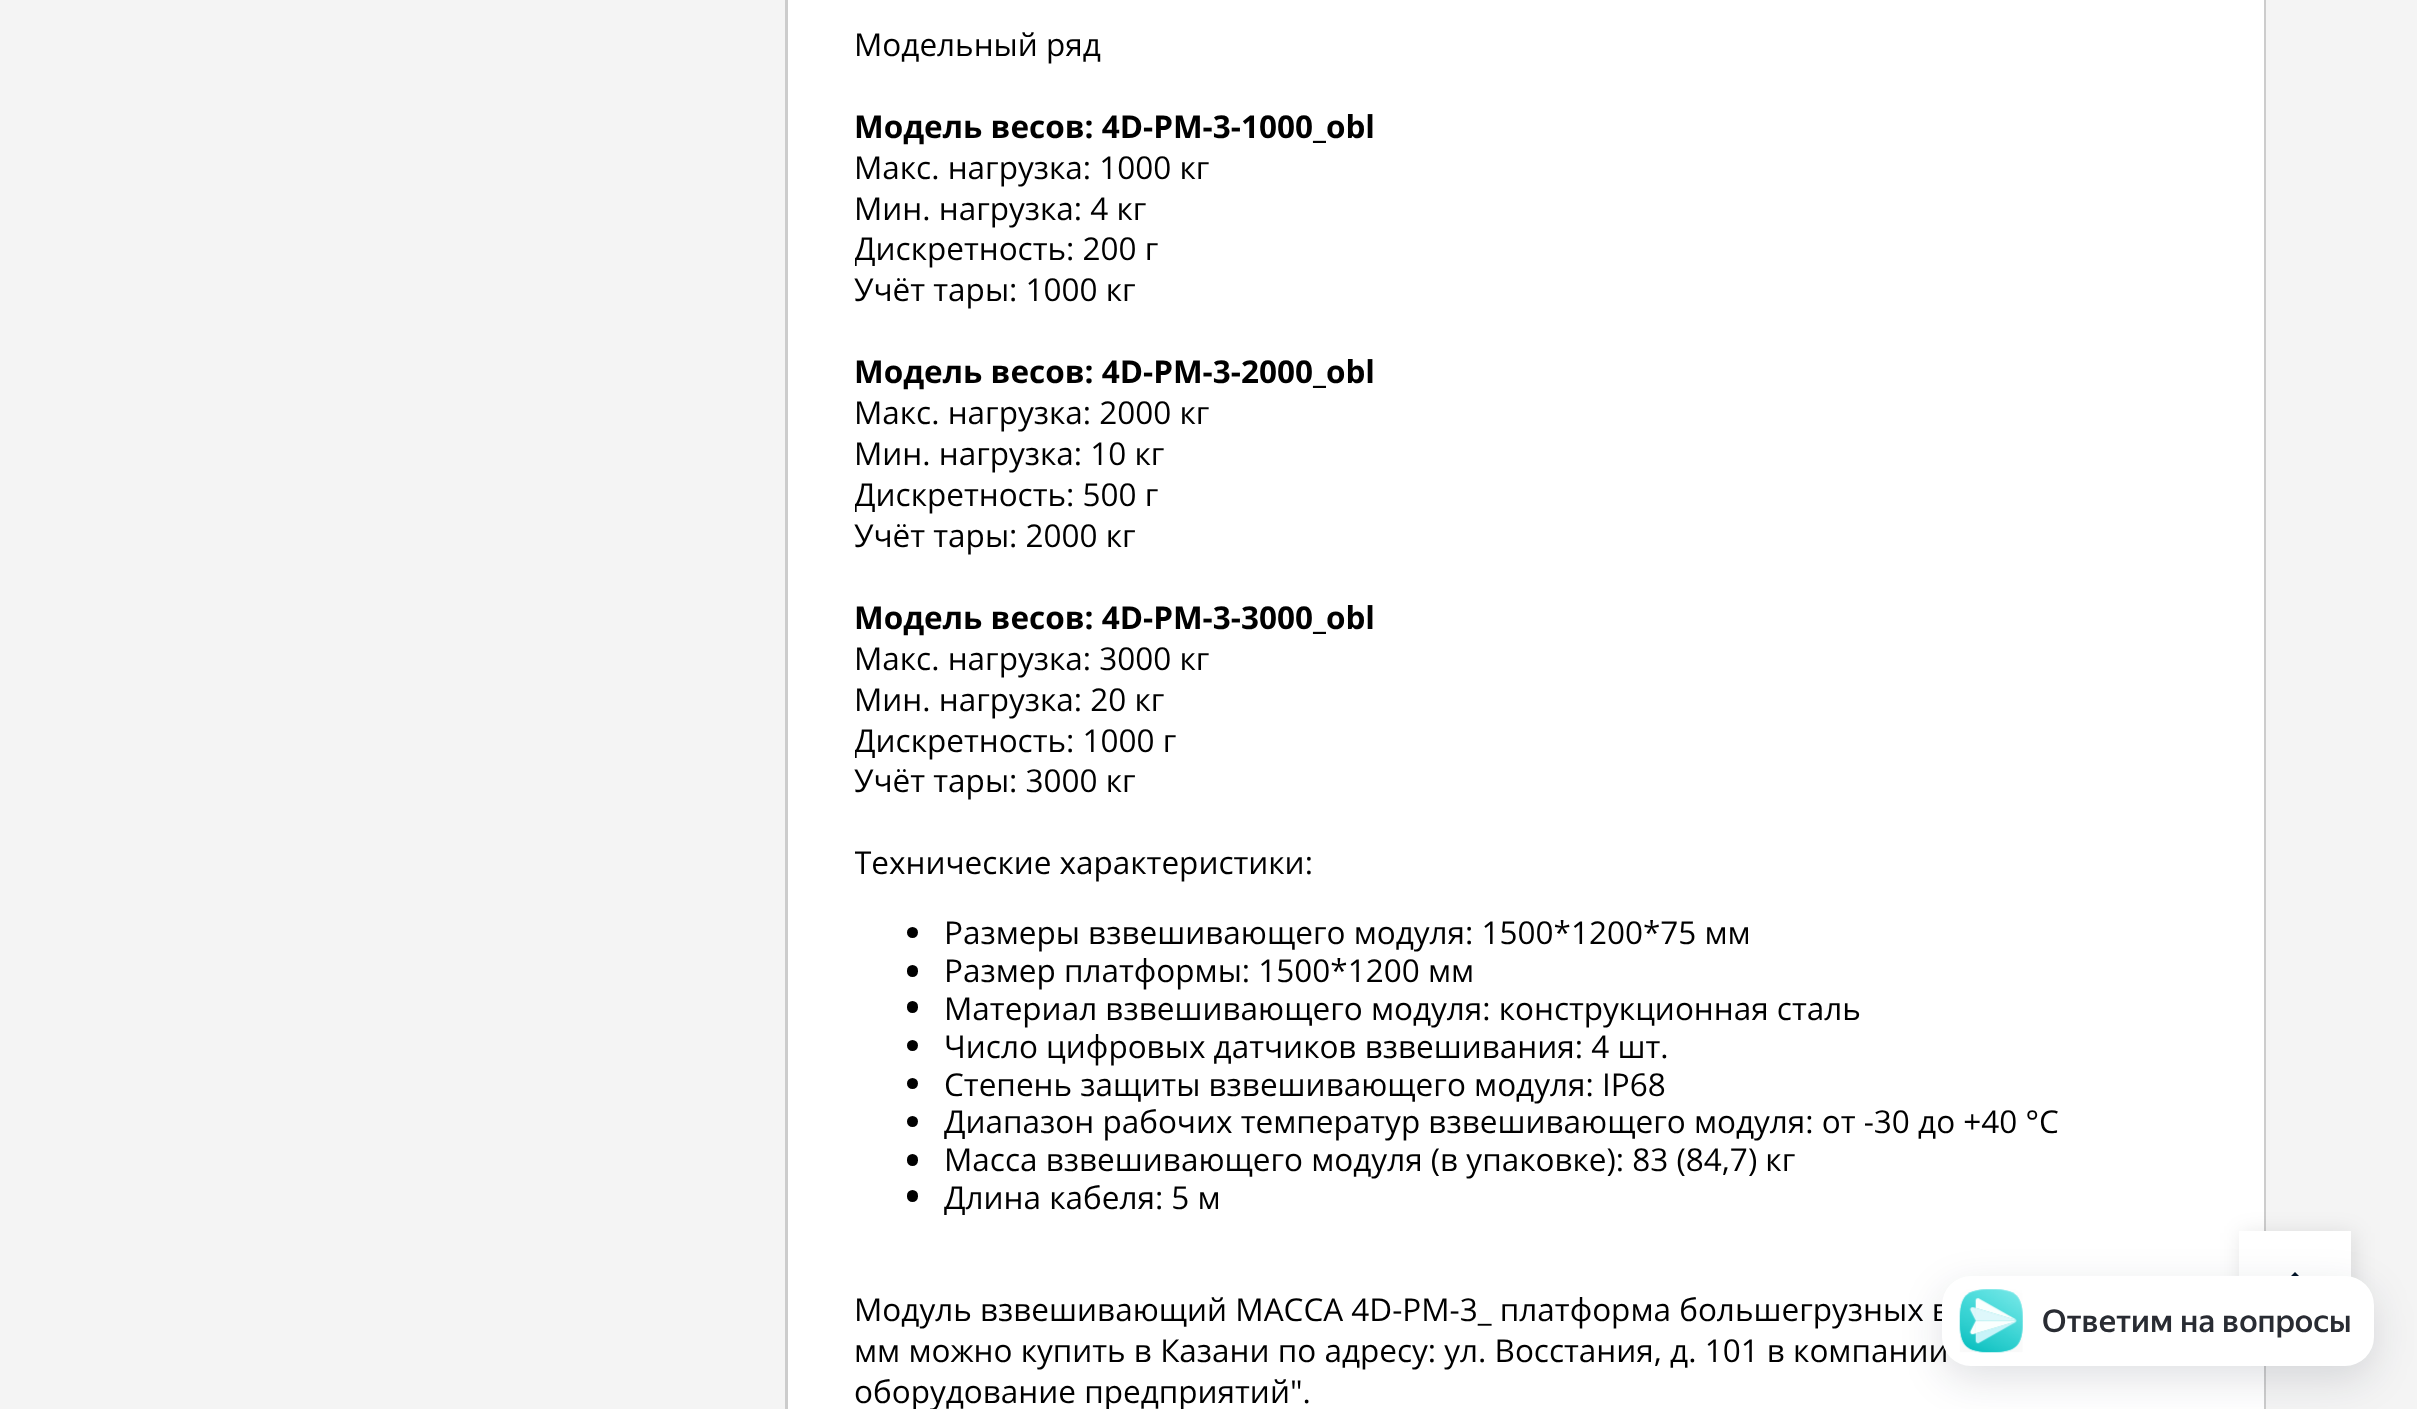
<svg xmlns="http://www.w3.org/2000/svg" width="2417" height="1409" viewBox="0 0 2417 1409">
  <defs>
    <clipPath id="clip1"><rect x="855" y="0" width="1341" height="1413"/></clipPath>
  </defs>
  <rect width="100%" height="100%" fill="rgb(244,244,244)"/>
  <rect x="788" y="0" width="1476" height="1409" fill="rgb(255,255,255)"/>
  <path d="M2266-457V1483L2264 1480V-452Z" fill="rgb(204,204,204)"/>
  <path d="M785 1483V-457L788-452V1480Z" fill="rgb(204,204,204)"/>
  <text x="854" y="56" font-family="Open Sans" font-size="31.5" fill="rgb(0,0,0)">Модельный ряд</text>
  <text x="854" y="138" font-family="Open Sans" font-size="31.5" font-weight="bold" fill="rgb(0,0,0)">Модель весов: 4D-PM-3-1000_obl</text>
  <g font-family="Open Sans" font-size="31.5" fill="rgb(0,0,0)">
    <text>
      <tspan x="854" y="179">Макс. нагрузка: 1000 кг</tspan>
      <tspan x="854" y="220">Мин. нагрузка: 4 кг</tspan>
    </text>
  </g>
  <g clip-path="url(#clip1)">
    <text x="854" y="260" font-family="Open Sans" font-size="31.5" fill="rgb(0,0,0)">Дискретность: 200 г</text>
  </g>
  <text x="854" y="301" font-family="Open Sans" font-size="31.5" fill="rgb(0,0,0)">Учёт тары: 1000 кг</text>
  <text x="854" y="383" font-family="Open Sans" font-size="31.5" font-weight="bold" fill="rgb(0,0,0)">Модель весов: 4D-PM-3-2000_obl</text>
  <g font-family="Open Sans" font-size="31.5" fill="rgb(0,0,0)">
    <text>
      <tspan x="854" y="424">Макс. нагрузка: 2000 кг</tspan>
      <tspan x="854" y="465">Мин. нагрузка: 10 кг</tspan>
    </text>
  </g>
  <g clip-path="url(#clip1)">
    <text x="854" y="506" font-family="Open Sans" font-size="31.5" fill="rgb(0,0,0)">Дискретность: 500 г</text>
  </g>
  <text x="854" y="547" font-family="Open Sans" font-size="31.5" fill="rgb(0,0,0)">Учёт тары: 2000 кг</text>
  <text x="854" y="629" font-family="Open Sans" font-size="31.5" font-weight="bold" fill="rgb(0,0,0)">Модель весов: 4D-PM-3-3000_obl</text>
  <g font-family="Open Sans" font-size="31.5" fill="rgb(0,0,0)">
    <text>
      <tspan x="854" y="670">Макс. нагрузка: 3000 кг</tspan>
      <tspan x="854" y="711">Мин. нагрузка: 20 кг</tspan>
    </text>
  </g>
  <g clip-path="url(#clip1)">
    <text x="854" y="752" font-family="Open Sans" font-size="31.5" fill="rgb(0,0,0)">Дискретность: 1000 г</text>
  </g>
  <text x="854" y="792" font-family="Open Sans" font-size="31.5" fill="rgb(0,0,0)">Учёт тары: 3000 кг</text>
  <g clip-path="url(#clip1)">
    <text x="854" y="874" font-family="Open Sans" font-size="31.5" fill="rgb(0,0,0)">Технические характеристики:</text>
  </g>
  <circle cx="912.5" cy="932.5" r="5.5" fill="rgb(0,0,0)"/>
  <text x="944" y="944" font-family="Open Sans" font-size="31.5" fill="rgb(0,0,0)">Размеры взвешивающего модуля: 1500*1200*75 мм</text>
  <rect x="907" y="965" width="11" height="12" rx="5.5" fill="rgb(0,0,0)"/>
  <text x="944" y="982" font-family="Open Sans" font-size="31.5" fill="rgb(0,0,0)">Размер платформы: 1500*1200 мм</text>
  <rect x="907" y="1001" width="11" height="12" rx="5.5" fill="rgb(0,0,0)"/>
  <text x="944" y="1020" font-family="Open Sans" font-size="31.5" fill="rgb(0,0,0)">Материал взвешивающего модуля: конструкционная сталь</text>
  <circle cx="912.5" cy="1045.5" r="5.5" fill="rgb(0,0,0)"/>
  <text x="944" y="1058" font-family="Open Sans" font-size="31.5" fill="rgb(0,0,0)">Число цифровых датчиков взвешивания: 4 шт.</text>
  <circle cx="912.5" cy="1083.5" r="5.5" fill="rgb(0,0,0)"/>
  <text x="944" y="1096" font-family="Open Sans" font-size="31.5" fill="rgb(0,0,0)">Степень защиты взвешивающего модуля: IP68</text>
  <circle cx="912.5" cy="1121.5" r="5.5" fill="rgb(0,0,0)"/>
  <text x="944" y="1133" font-family="Open Sans" font-size="31.5" fill="rgb(0,0,0)">Диапазон рабочих температур взвешивающего модуля: от -30 до +40 °С</text>
  <rect x="907" y="1154" width="11" height="12" rx="5.5" fill="rgb(0,0,0)"/>
  <text x="944" y="1171" font-family="Open Sans" font-size="31.5" fill="rgb(0,0,0)">Масса взвешивающего модуля (в упаковке): 83 (84,7) кг</text>
  <rect x="907" y="1190" width="11" height="12" rx="5.5" fill="rgb(0,0,0)"/>
  <g font-family="Open Sans" font-size="31.5" fill="rgb(0,0,0)">
    <text x="944" y="1209">Длина кабеля: 5 м</text>
    <text>
      <tspan x="854" y="1321">Модуль взвешивающий МАССА 4D-PM-3_ платформа большегрузных в</tspan>
      <tspan x="854" y="1362">мм можно купить в Казани по адресу: ул. Восстания, д. 101 в компании</tspan>
      <tspan x="854" y="1403">оборудование предприятий".</tspan>
    </text>
  </g>
  <rect x="2241" y="1233" width="113" height="113" fill="rgba(0,0,0,0.1)" filter="blur(11px)"/>
  <rect x="2239" y="1231" width="112" height="46" fill="rgb(255,255,255)"/>
  <path d="M2278 1300L2272 1295L2295 1272L2318 1295L2312 1300L2295 1283Z" fill="rgb(1,19,39)"/>
  <rect x="1942" y="1289" width="432" height="90" rx="29" fill="rgba(14,21,47,0.13)" filter="blur(20px)"/>
  <rect x="1942" y="1276" width="432" height="90" rx="29" fill="rgb(255,255,255)"/>
  <image x="1959" y="1289" width="64" height="64" href="pic1.png"/>
  <text x="2042" y="1332" font-family="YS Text" font-size="31.5" font-weight="500" fill="rgb(41,44,51)">Ответим на вопросы</text>
</svg>
